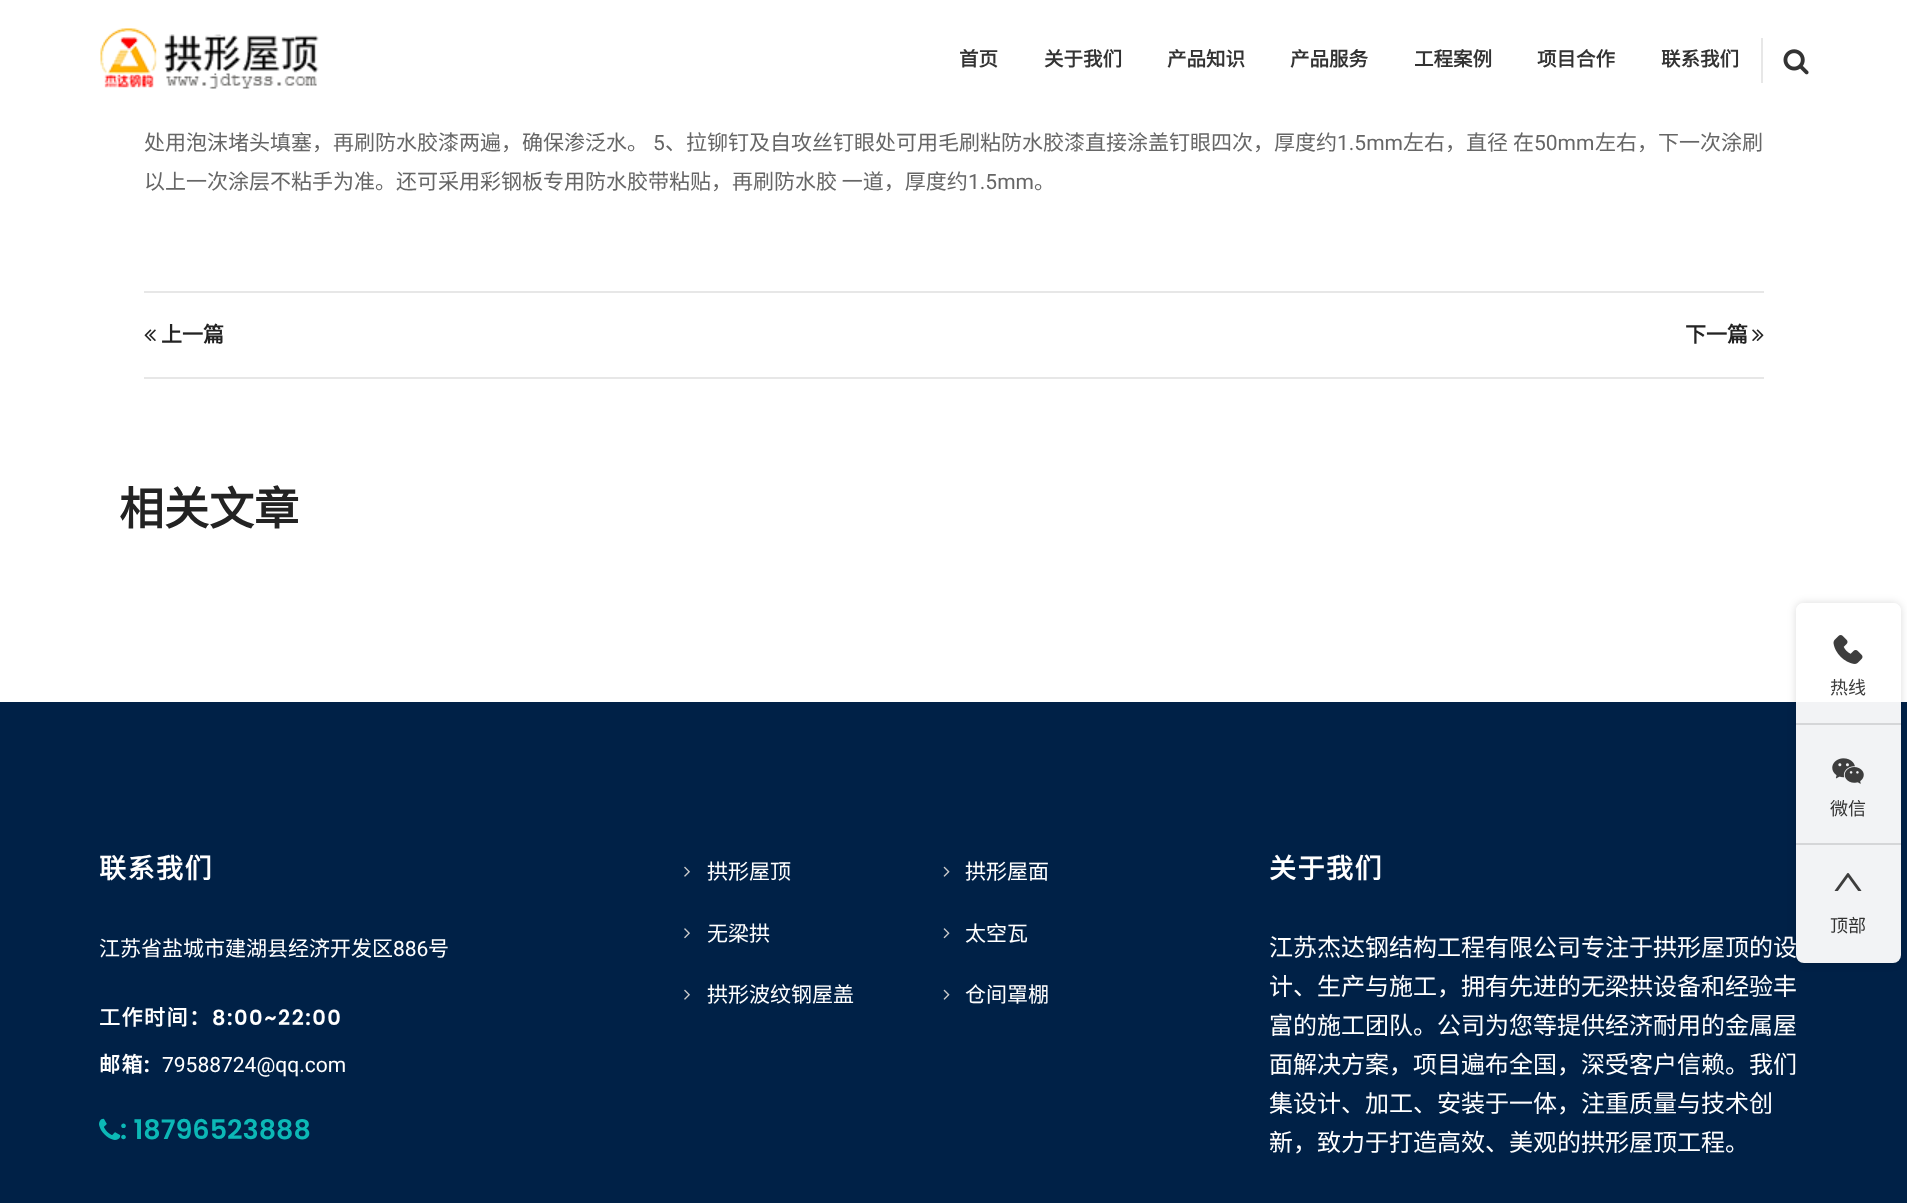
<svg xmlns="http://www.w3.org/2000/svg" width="1907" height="1203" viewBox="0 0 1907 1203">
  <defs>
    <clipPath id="clip1"><path d="M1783 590H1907V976H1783ZM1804 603H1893C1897.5 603 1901 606.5 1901 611V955C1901 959.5 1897.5 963 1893 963H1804C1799.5 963 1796 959.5 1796 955V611C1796 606.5 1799.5 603 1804 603Z" clip-rule="evenodd"/></clipPath>
  </defs>
  <rect width="100%" height="100%" fill="rgb(255,255,255)"/>
  <image x="100" y="28" width="219" height="61" href="pic1.png"/>
  <g font-family="Noto Sans CJK SC" font-size="19.5" font-weight="bold" fill="rgb(51,51,51)">
    <text x="959" y="66">首页</text>
    <text x="1044" y="66">关于我们</text>
    <text x="1167" y="66">产品知识</text>
    <text x="1290" y="66">产品服务</text>
    <text x="1414" y="66">工程案例</text>
    <text x="1537" y="66">项目合作</text>
    <text x="1661" y="66">联系我们</text>
  </g>
  <rect x="1761" y="38" width="2" height="45" fill="rgb(231,231,231)"/>
  <image x="1783" y="49" width="26" height="26" href="pic2.png"/>
  <text x="144" y="150" font-family="Noto Sans CJK SC" font-size="21" fill="rgb(102,102,102)">处用泡沫堵头填塞，再刷防水胶漆两遍，确保渗泛水。</text>
  <text x="653" y="150" font-family="Roboto" font-size="21" fill="rgb(102,102,102)">5</text>
  <text x="665" y="150" font-family="Noto Sans CJK SC" font-size="21" fill="rgb(102,102,102)">、拉铆钉及自攻丝钉眼处可用毛刷粘防水胶漆直接涂盖钉眼四次，厚度约</text>
  <text x="1337" y="150" font-family="Roboto" font-size="21" fill="rgb(102,102,102)">1.5mm</text>
  <g font-family="Noto Sans CJK SC" font-size="21" fill="rgb(102,102,102)">
    <text x="1403" y="150">左右，直径</text>
    <text x="1513" y="150">在</text>
  </g>
  <text x="1534" y="150" font-family="Roboto" font-size="21" fill="rgb(102,102,102)">50mm</text>
  <g font-family="Noto Sans CJK SC" font-size="21" fill="rgb(102,102,102)">
    <text x="1595" y="150">左右，下一次涂刷</text>
    <text x="144" y="189">以上一次涂层不粘手为准。还可采用彩钢板专用防水胶带粘贴，再刷防水胶 一道，厚度约</text>
  </g>
  <text x="968" y="189" font-family="Roboto" font-size="21" fill="rgb(102,102,102)">1.5mm</text>
  <text x="1034" y="189" font-family="Noto Sans CJK SC" font-size="21" fill="rgb(102,102,102)">。</text>
  <rect x="144" y="291" width="1620" height="2" fill="rgb(231,231,231)"/>
  <rect x="144" y="377" width="1620" height="2" fill="rgb(231,231,231)"/>
  <image x="144" y="329" width="12" height="12" href="pic3.png"/>
  <g font-family="Noto Sans CJK SC" font-size="21" font-weight="bold" fill="rgb(35,35,35)">
    <text x="161" y="342">上一篇</text>
    <text x="1685" y="342">下一篇</text>
  </g>
  <image x="1752" y="329" width="12" height="12" href="pic4.png"/>
  <text x="119" y="525" font-family="Noto Sans CJK SC" font-size="45" font-weight="bold" fill="rgb(35,35,35)">相关文章</text>
  <rect x="0" y="702" width="1907" height="501" fill="rgb(0,33,71)"/>
  <g clip-path="url(#clip1)">
    <rect x="1796" y="603" width="105" height="360" rx="8" fill="rgba(0,0,0,0.14)" filter="blur(4px)"/>
  </g>
  <text x="1269" y="956" font-family="Noto Sans CJK SC" font-size="24" fill="rgb(255,255,255)">江苏杰达钢结构工程有限公司专注于拱形屋顶的设</text>
  <rect x="1796" y="603" width="105" height="360" rx="8" fill="rgba(255,255,255,0.95)"/>
  <image x="1833" y="635" width="30" height="29" href="pic5.png"/>
  <text x="1830" y="694" font-family="Noto Sans CJK SC" font-size="18" fill="rgb(61,61,61)">热线</text>
  <rect x="1796" y="723" width="105" height="2" fill="rgb(213,214,216)"/>
  <image x="1832" y="758" width="32" height="26" href="pic6.png"/>
  <text x="1830" y="815" font-family="Noto Sans CJK SC" font-size="18" fill="rgb(51,51,51)">微信</text>
  <rect x="1796" y="843" width="105" height="2" fill="rgb(213,214,216)"/>
  <image x="1834" y="873" width="28" height="18" href="pic7.png"/>
  <text x="1830" y="932" font-family="Noto Sans CJK SC" font-size="18" fill="rgb(51,51,51)">顶部</text>
  <text x="99" y="878" font-family="Noto Sans CJK SC" font-size="27" font-weight="bold" letter-spacing="1.5" fill="rgb(255,255,255)">联系我们</text>
  <text x="99" y="956" font-family="Noto Sans CJK SC" font-size="21" fill="rgb(255,255,255)">江苏省盐城市建湖县经济开发区</text>
  <text x="393" y="956" font-family="Roboto" font-size="21" fill="rgb(255,255,255)">886</text>
  <text x="428" y="956" font-family="Noto Sans CJK SC" font-size="21" fill="rgb(255,255,255)">号</text>
  <text x="99" y="1025" font-family="Noto Sans CJK SC" font-size="21" font-weight="bold" letter-spacing="1.5" fill="rgb(255,255,255)">工作时间：</text>
  <text x="212" y="1025" font-family="Poppins" font-size="21" font-weight="600" letter-spacing="1.5" fill="rgb(255,255,255)">8:00~22:00</text>
  <text x="99" y="1072" font-family="Noto Sans CJK SC" font-size="21" font-weight="bold" letter-spacing="1.5" fill="rgb(255,255,255)">邮箱</text>
  <text x="144" y="1072" font-family="Poppins" font-size="21" font-weight="600" letter-spacing="1.5" fill="rgb(255,255,255)">:</text>
  <text x="162" y="1072" font-family="Roboto" font-size="21" fill="rgb(255,255,255)">79588724@qq.com</text>
  <image x="99" y="1118" width="22" height="22" href="pic8.png"/>
  <text x="120" y="1139" font-family="Poppins" font-size="27" font-weight="600" fill="rgb(12,184,182)">: 18796523888</text>
  <image x="684" y="866" width="6" height="11" href="pic9.png"/>
  <text x="707" y="879" font-family="Noto Sans CJK SC" font-size="21" fill="rgb(255,255,255)">拱形屋顶</text>
  <image x="943" y="866" width="7" height="11" href="pic10.png"/>
  <text x="965" y="879" font-family="Noto Sans CJK SC" font-size="21" fill="rgb(255,255,255)">拱形屋面</text>
  <image x="684" y="928" width="6" height="11" href="pic11.png"/>
  <text x="707" y="941" font-family="Noto Sans CJK SC" font-size="21" fill="rgb(255,255,255)">无梁拱</text>
  <image x="943" y="928" width="7" height="11" href="pic12.png"/>
  <text x="965" y="941" font-family="Noto Sans CJK SC" font-size="21" fill="rgb(255,255,255)">太空瓦</text>
  <image x="684" y="989" width="6" height="11" href="pic9.png"/>
  <text x="707" y="1002" font-family="Noto Sans CJK SC" font-size="21" fill="rgb(255,255,255)">拱形波纹钢屋盖</text>
  <image x="943" y="989" width="7" height="11" href="pic10.png"/>
  <text x="965" y="1002" font-family="Noto Sans CJK SC" font-size="21" fill="rgb(255,255,255)">仓间罩棚</text>
  <text x="1269" y="878" font-family="Noto Sans CJK SC" font-size="27" font-weight="bold" letter-spacing="1.5" fill="rgb(255,255,255)">关于我们</text>
  <g font-family="Noto Sans CJK SC" font-size="24" fill="rgb(255,255,255)">
    <text>
      <tspan x="1269" y="995">计、生产与施工，拥有先进的无梁拱设备和经验丰</tspan>
      <tspan x="1269" y="1034">富的施工团队。公司为您等提供经济耐用的金属屋</tspan>
      <tspan x="1269" y="1073">面解决方案，项目遍布全国，深受客户信赖。我们</tspan>
      <tspan x="1269" y="1112">集设计、加工、安装于一体，注重质量与技术创</tspan>
      <tspan x="1269" y="1151">新，致力于打造高效、美观的拱形屋顶工程。</tspan>
    </text>
  </g>
</svg>
